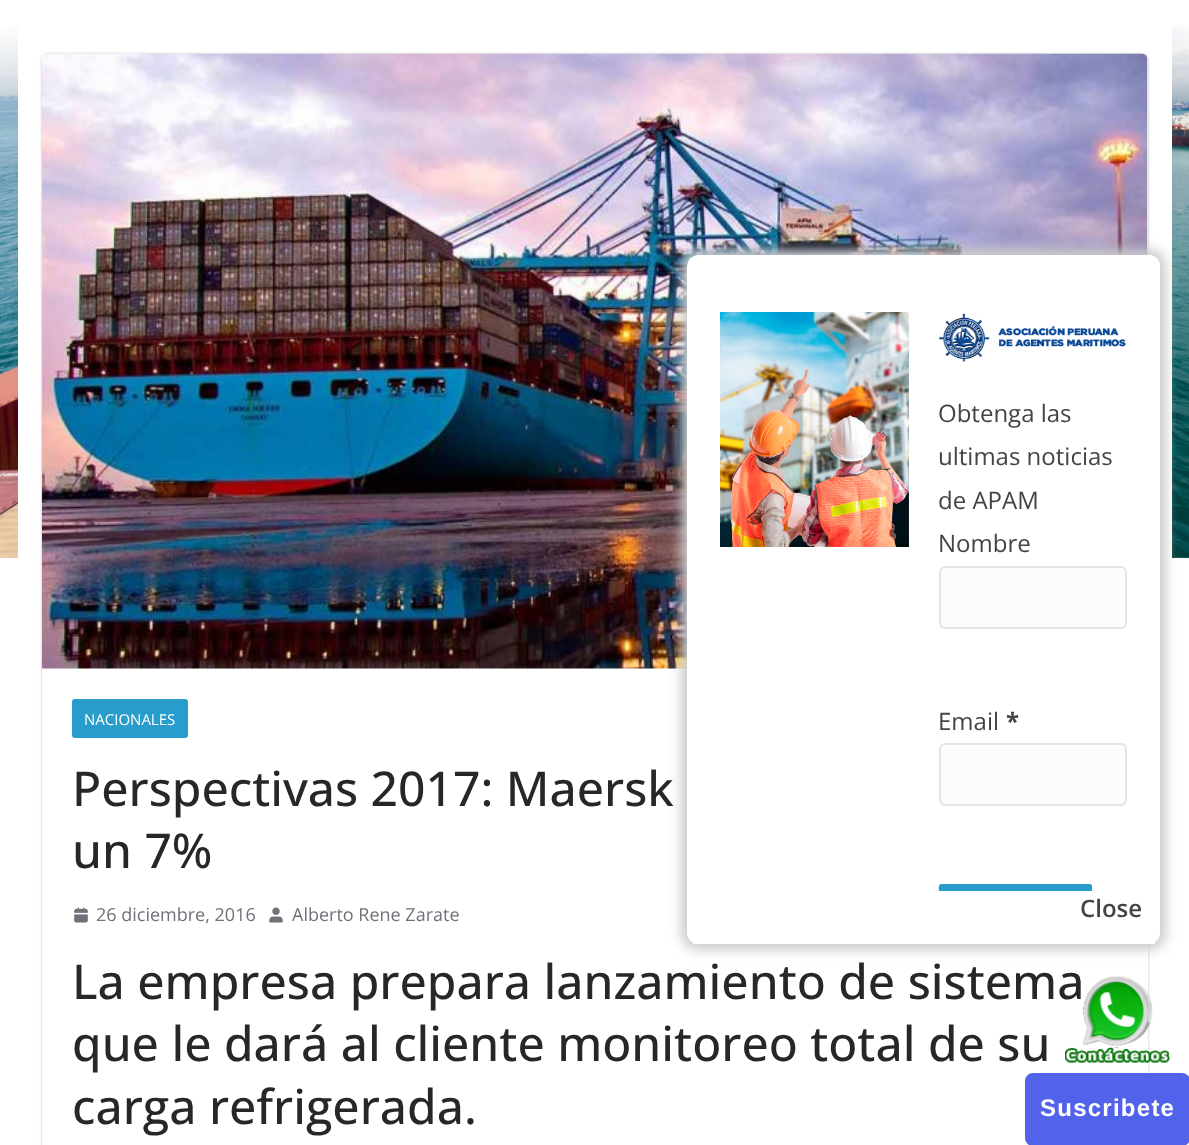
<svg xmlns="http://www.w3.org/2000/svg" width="1189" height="1145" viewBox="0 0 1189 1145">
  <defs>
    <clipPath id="clip1"><path d="M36 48H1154V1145H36ZM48 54H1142C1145.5 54 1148 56.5 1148 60V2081C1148 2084.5 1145.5 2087 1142 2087H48C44.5 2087 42 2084.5 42 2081V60C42 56.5 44.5 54 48 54Z" clip-rule="evenodd"/></clipPath>
    <clipPath id="clip2"><path d="M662 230H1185V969H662ZM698 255H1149C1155 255 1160 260 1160 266V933C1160 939 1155 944 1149 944H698C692 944 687 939 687 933V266C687 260 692 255 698 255Z" clip-rule="evenodd"/></clipPath>
  </defs>
  <rect width="100%" height="100%" fill="rgb(255,255,255)"/>
  <image x="0" y="25" width="1189" height="534" href="pic1.png"/>
  <rect x="18" y="25" width="1154" height="534" fill="rgb(255,255,255)"/>
  <g clip-path="url(#clip1)">
    <rect x="42" y="54" width="1106" height="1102" rx="6" fill="rgba(0,0,0,0.24)" filter="blur(1.5px)"/>
  </g>
  <image x="42" y="53" width="1106" height="616" href="pic4.png"/>
  <g clip-path="url(#clip2)">
    <rect x="681" y="249" width="485" height="701" rx="17" fill="rgb(204,204,204)" filter="blur(6px)"/>
  </g>
  <path d="M698 255H1149C1155 255 1160 260 1160 266V891H687V266C687 260 692 255 698 255Z" fill="rgb(255,255,255)"/>
  <rect x="693" y="891" width="462" height="53" fill="rgb(255,255,255)"/>
  <image x="720" y="312" width="189" height="235" href="pic2.png"/>
  <image x="938" y="313" width="188" height="49" href="pic3.png"/>
  <g font-family="Open Sans" font-size="24" fill="rgb(68,68,68)">
    <text>
      <tspan x="938" y="422">Obtenga las</tspan>
      <tspan x="938" y="465">ultimas noticias</tspan>
      <tspan x="938" y="509">de APAM</tspan>
      <tspan x="938" y="552">Nombre</tspan>
    </text>
  </g>
  <rect x="940" y="567" width="186" height="61" rx="5" fill="rgb(252,252,252)" stroke="rgb(228,228,231)" stroke-width="2"/>
  <text x="938" y="730" font-family="Open Sans" font-size="24" fill="rgb(68,68,68)">Email</text>
  <text x="1006" y="730" font-family="Open Sans" font-size="24" font-weight="bold" fill="rgb(68,68,68)">*</text>
  <rect x="940" y="744" width="186" height="61" rx="5" fill="rgb(252,252,252)" stroke="rgb(228,228,231)" stroke-width="2"/>
  <path d="M942 884H1089C1091 884 1092 885 1092 887V891H939C939 889 938 884 942 884Z" fill="rgb(40,157,204)"/>
  <path d="M942 884C938 884 939 889 939 891H941V887C941 886 941 886 942 886H1089C1090 886 1090 886 1090 887V891H1092C1092 889 1093 884 1089 884Z" fill="rgb(40,157,204)"/>
  <text x="1080" y="917" font-family="Open Sans" font-size="24" font-weight="600" fill="rgb(68,68,68)">Close</text>
  <rect x="72" y="699" width="116" height="39" rx="3" fill="rgb(40,157,204)"/>
  <text x="84" y="725" font-family="Open Sans" font-size="15" fill="rgb(255,255,255)">NACIONALES</text>
  <g font-family="Open Sans" font-size="48" font-weight="500" fill="rgb(39,39,42)">
    <text>
      <tspan x="72" y="806">Perspectivas 2017: Maersk</tspan>
      <tspan x="72" y="868">un 7%</tspan>
    </text>
  </g>
  <image x="74" y="907" width="14" height="16" href="pic5.png"/>
  <text x="96" y="921" font-family="Open Sans" font-size="18" fill="rgb(113,113,122)">26 diciembre, 2016</text>
  <image x="269" y="907" width="14" height="16" href="pic6.png"/>
  <text x="292" y="921" font-family="Open Sans" font-size="18" fill="rgb(113,113,122)">Alberto Rene Zarate</text>
  <g font-family="Open Sans" font-size="48" font-weight="500" fill="rgb(39,39,42)">
    <text>
      <tspan x="72" y="999">La empresa prepara lanzamiento de sistema</tspan>
      <tspan x="72" y="1061">que le dará al cliente monitoreo total de su</tspan>
      <tspan x="72" y="1124">carga refrigerada.</tspan>
    </text>
  </g>
  <image x="1065" y="976" width="105" height="87" href="pic7.png"/>
  <rect x="1025" y="1073" width="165" height="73" rx="8" fill="rgb(82,99,235)"/>
  <text x="1040" y="1116" font-family="Liberation Sans" font-size="24" font-weight="bold" letter-spacing="1.25" fill="rgb(255,255,255)">Suscribete</text>
</svg>
